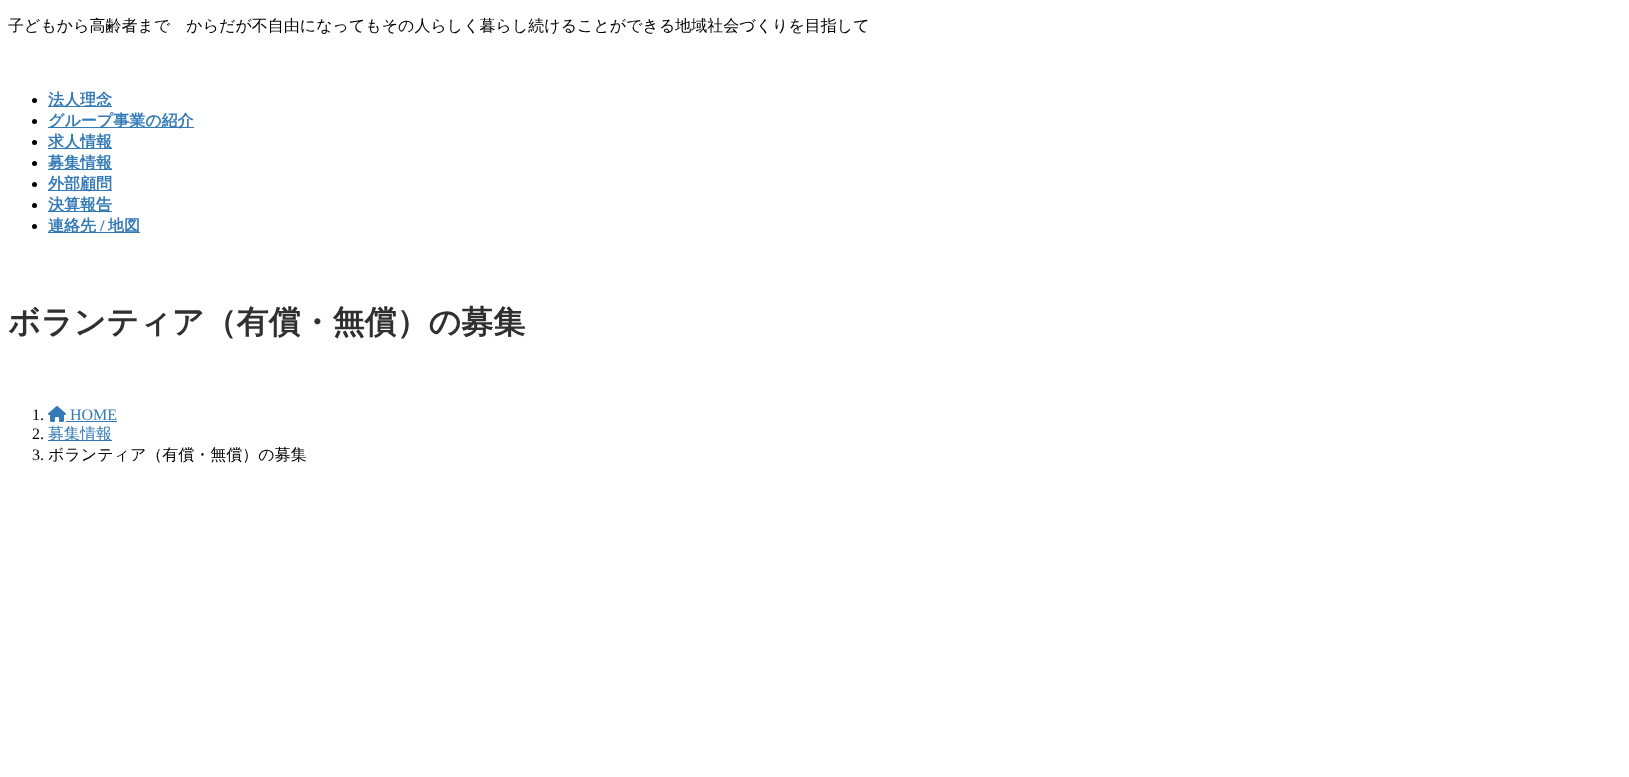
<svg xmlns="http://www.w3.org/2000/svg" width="1629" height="777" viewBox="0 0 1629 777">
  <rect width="100%" height="100%" fill="rgb(255,255,255)"/>
  <text x="8" y="31" font-family="WenQuanYi Zen Hei" font-size="16" font-weight="500" fill="rgb(0,0,0)">子どもから高齢者まで　からだが不自由になってもその人らしく暮らし続けることができる地域社会づくりを目指して</text>
  <circle cx="34.5" cy="100.5" r="2.5" fill="rgb(0,0,0)"/>
  <rect x="48" y="106" width="64" height="1" fill="rgb(51,122,183)"/>
  <text x="48" y="105" font-family="WenQuanYi Zen Hei" font-size="16" font-weight="bold" fill="rgb(51,122,183)">法人理念</text>
  <circle cx="34.5" cy="121.5" r="2.5" fill="rgb(0,0,0)"/>
  <rect x="48" y="127" width="146" height="1" fill="rgb(51,122,183)"/>
  <text x="48" y="126" font-family="WenQuanYi Zen Hei" font-size="16" font-weight="bold" fill="rgb(51,122,183)">グループ事業の紹介</text>
  <circle cx="34.5" cy="142.5" r="2.5" fill="rgb(0,0,0)"/>
  <rect x="48" y="148" width="64" height="1" fill="rgb(51,122,183)"/>
  <text x="48" y="147" font-family="WenQuanYi Zen Hei" font-size="16" font-weight="bold" fill="rgb(51,122,183)">求人情報</text>
  <circle cx="34.5" cy="163.5" r="2.5" fill="rgb(0,0,0)"/>
  <rect x="48" y="169" width="64" height="1" fill="rgb(51,122,183)"/>
  <text x="48" y="168" font-family="WenQuanYi Zen Hei" font-size="16" font-weight="bold" fill="rgb(51,122,183)">募集情報</text>
  <circle cx="34.5" cy="184.5" r="2.5" fill="rgb(0,0,0)"/>
  <rect x="48" y="190" width="64" height="1" fill="rgb(51,122,183)"/>
  <text x="48" y="189" font-family="WenQuanYi Zen Hei" font-size="16" font-weight="bold" fill="rgb(51,122,183)">外部顧問</text>
  <circle cx="34.5" cy="205.5" r="2.5" fill="rgb(0,0,0)"/>
  <rect x="48" y="211" width="64" height="1" fill="rgb(51,122,183)"/>
  <text x="48" y="210" font-family="WenQuanYi Zen Hei" font-size="16" font-weight="bold" fill="rgb(51,122,183)">決算報告</text>
  <circle cx="34.5" cy="226.5" r="2.5" fill="rgb(0,0,0)"/>
  <rect x="48" y="232" width="92" height="1" fill="rgb(51,122,183)"/>
  <text x="48" y="231" font-family="WenQuanYi Zen Hei" font-size="16" font-weight="bold" fill="rgb(51,122,183)">連絡先</text>
  <text x="100" y="231" font-family="Liberation Serif" font-size="16" font-weight="bold" fill="rgb(51,122,183)">/</text>
  <text x="108" y="231" font-family="WenQuanYi Zen Hei" font-size="16" font-weight="bold" fill="rgb(51,122,183)">地図</text>
  <text x="8" y="333" font-family="WenQuanYi Zen Hei" font-size="32" font-weight="bold" fill="rgb(48,48,48)">ボランティア（有償・無償）の募集</text>
  <text x="32" y="420" font-family="Liberation Serif" font-size="16" fill="rgb(0,0,0)">1.</text>
  <image x="48" y="406" width="18" height="16" href="pic1.png"/>
  <text x="70" y="420" font-family="Liberation Serif" font-size="16" fill="rgb(51,122,183)">HOME</text>
  <rect x="66" y="421" width="51" height="1" fill="rgb(51,122,183)"/>
  <text x="32" y="439" font-family="Liberation Serif" font-size="16" fill="rgb(0,0,0)">2.</text>
  <rect x="48" y="440" width="64" height="1" fill="rgb(51,122,183)"/>
  <text x="48" y="439" font-family="WenQuanYi Zen Hei" font-size="16" font-weight="500" fill="rgb(51,122,183)">募集情報</text>
  <text x="32" y="460" font-family="Liberation Serif" font-size="16" fill="rgb(0,0,0)">3.</text>
  <text x="48" y="460" font-family="WenQuanYi Zen Hei" font-size="16" font-weight="500" fill="rgb(0,0,0)">ボランティア（有償・無償）の募集</text>
</svg>
